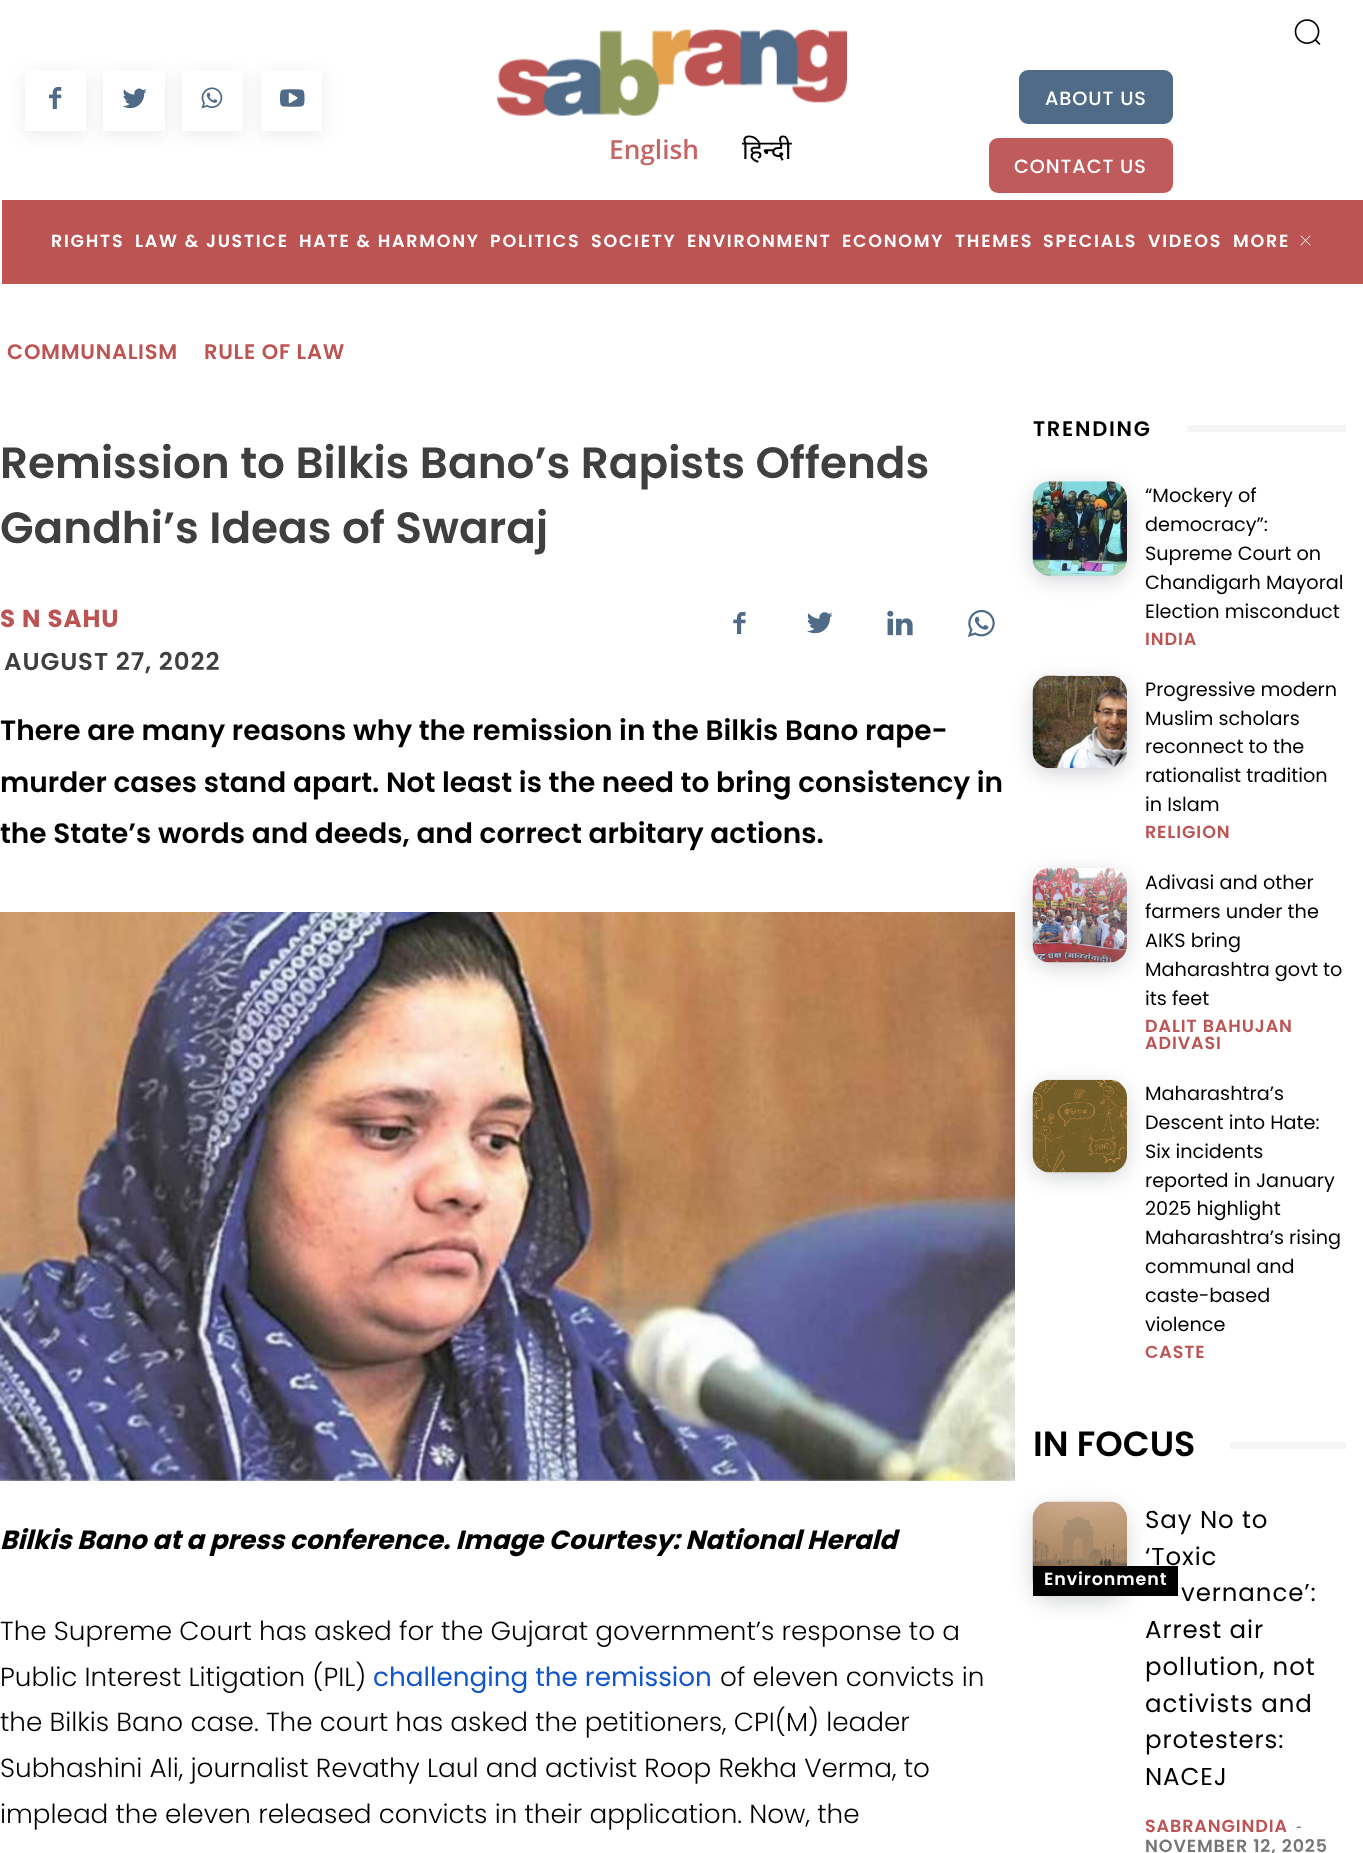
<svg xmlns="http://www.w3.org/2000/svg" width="1363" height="1853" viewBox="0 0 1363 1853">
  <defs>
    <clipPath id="clip1"><path d="M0 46H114V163H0ZM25 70H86V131H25Z" clip-rule="evenodd"/></clipPath>
    <clipPath id="clip2"><path d="M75 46H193V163H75ZM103 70H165V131H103Z" clip-rule="evenodd"/></clipPath>
    <clipPath id="clip3"><path d="M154 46H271V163H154ZM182 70H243V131H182Z" clip-rule="evenodd"/></clipPath>
    <clipPath id="clip4"><path d="M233 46H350V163H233ZM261 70H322V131H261Z" clip-rule="evenodd"/></clipPath>
  </defs>
  <rect width="100%" height="100%" fill="rgb(255,255,255)"/>
  <g clip-path="url(#clip1)">
    <rect x="25" y="74" width="61" height="61" fill="rgba(0,0,0,0.08)" filter="blur(9px)"/>
  </g>
  <image x="49" y="87" width="13" height="22" href="pic1.png"/>
  <g clip-path="url(#clip2)">
    <rect x="103" y="74" width="62" height="61" fill="rgba(0,0,0,0.08)" filter="blur(9px)"/>
  </g>
  <image x="122" y="88" width="25" height="21" href="pic2.png"/>
  <g clip-path="url(#clip3)">
    <rect x="182" y="74" width="61" height="61" fill="rgba(0,0,0,0.08)" filter="blur(9px)"/>
  </g>
  <image x="201" y="87" width="22" height="22" href="pic3.png"/>
  <g clip-path="url(#clip4)">
    <rect x="261" y="74" width="61" height="61" fill="rgba(0,0,0,0.08)" filter="blur(9px)"/>
  </g>
  <image x="280" y="89" width="25" height="18" href="pic4.png"/>
  <image x="497" y="29" width="350" height="87" href="pic5.png"/>
  <text x="609" y="159" font-family="Open Sans" font-size="26.25" font-weight="600" fill="rgb(199,100,100)">English</text>
  <text x="742" y="159" font-family="Noto Sans" font-size="26.25" fill="rgb(0,0,0)">हिन्दी</text>
  <image x="1294" y="19" width="27" height="26" href="pic6.png"/>
  <rect x="1019" y="70" width="154" height="54" rx="9" fill="rgb(79,107,135)"/>
  <text x="1045" y="105" font-family="Poppins" font-size="19.25" font-weight="500" letter-spacing="0.9" fill="rgb(255,255,255)">ABOUT US</text>
  <rect x="989" y="138" width="184" height="55" rx="9" fill="rgb(192,91,91)"/>
  <text x="1014" y="173" font-family="Poppins" font-size="19.25" font-weight="500" letter-spacing="0.9" fill="rgb(255,255,255)">CONTACT US</text>
  <rect x="2" y="200" width="1361" height="84" fill="rgb(189,84,84)"/>
  <g font-family="Poppins" font-size="17.5" font-weight="600" letter-spacing="1.75" fill="rgb(255,255,255)">
    <text x="51" y="247">RIGHTS</text>
    <text x="135" y="247">LAW &amp; JUSTICE</text>
    <text x="299" y="247">HATE &amp; HARMONY</text>
    <text x="490" y="247">POLITICS</text>
    <text x="591" y="247">SOCIETY</text>
    <text x="687" y="247">ENVIRONMENT</text>
    <text x="842" y="247">ECONOMY</text>
    <text x="955" y="247">THEMES</text>
    <text x="1043" y="247">SPECIALS</text>
    <text x="1148" y="247">VIDEOS</text>
    <text x="1233" y="247">MORE</text>
  </g>
  <image x="1300" y="235" width="11" height="11" href="pic7.png"/>
  <g font-family="Poppins" font-size="21" font-weight="600" letter-spacing="0.75" fill="rgb(189,84,84)">
    <text x="7" y="359">COMMUNALISM</text>
    <text x="204" y="359">RULE OF LAW</text>
  </g>
  <g font-family="Poppins" font-size="43.75" font-weight="600" fill="rgb(63,63,63)">
    <text>
      <tspan x="0" y="478">Remission to Bilkis Bano’s Rapists Offends</tspan>
      <tspan x="0" y="543">Gandhi’s Ideas of Swaraj</tspan>
    </text>
  </g>
  <text x="0" y="627" font-family="Poppins" font-size="24.5" font-weight="bold" letter-spacing="0.9" fill="rgb(189,84,84)">S N SAHU</text>
  <text x="4" y="670" font-family="Poppins" font-size="24.5" font-weight="600" letter-spacing="0.9" fill="rgb(63,63,63)">AUGUST 27, 2022</text>
  <image x="733" y="612" width="13" height="22" href="pic8.png"/>
  <image x="807" y="612" width="26" height="22" href="pic9.png"/>
  <image x="887" y="610" width="26" height="26" href="pic10.png"/>
  <image x="967" y="609" width="28" height="28" href="pic11.png"/>
  <g font-family="Poppins" font-size="28" font-weight="600" fill="rgb(0,0,0)">
    <text>
      <tspan x="0" y="740">There are many reasons why the remission in the Bilkis Bano rape-</tspan>
      <tspan x="0" y="792">murder cases stand apart. Not least is the need to bring consistency in</tspan>
      <tspan x="0" y="843">the State’s words and deeds, and correct arbitary actions.</tspan>
    </text>
  </g>
  <image x="0" y="912" width="1015" height="569" href="pic12.png"/>
  <text x="0" y="1549" font-family="Poppins" font-size="26.25" font-weight="bold" font-style="italic" fill="rgb(0,0,0)">Bilkis Bano at a press conference. Image Courtesy: National Herald</text>
  <g font-family="Poppins" font-size="26.25" font-weight="300" fill="rgb(0,0,0)">
    <text>
      <tspan x="0" y="1640">The Supreme Court has asked for the Gujarat government’s response to a</tspan>
      <tspan x="0" y="1686">Public Interest Litigation (PIL)</tspan>
    </text>
  </g>
  <text x="373" y="1686" font-family="Poppins" font-size="26.25" fill="rgb(17,85,204)">challenging the remission</text>
  <g font-family="Poppins" font-size="26.25" font-weight="300" fill="rgb(0,0,0)">
    <text x="720" y="1686">of eleven convicts in</text>
    <text>
      <tspan x="0" y="1731">the Bilkis Bano case. The court has asked the petitioners, CPI(M) leader</tspan>
      <tspan x="0" y="1777">Subhashini Ali, journalist Revathy Laul and activist Roop Rekha Verma, to</tspan>
      <tspan x="0" y="1823">implead the eleven released convicts in their application. Now, the</tspan>
    </text>
  </g>
  <text x="1033" y="436" font-family="Poppins" font-size="21" font-weight="600" letter-spacing="1.75" fill="rgb(0,0,0)">TRENDING</text>
  <rect x="1187" y="425" width="159" height="7" fill="rgb(245,245,245)"/>
  <rect x="1034" y="488" width="91" height="91" rx="16" fill="rgba(7,10,25,0.2)" filter="blur(10.5px)"/>
  <image x="1032" y="481" width="95" height="95" href="pic13.png"/>
  <g font-family="Poppins" font-size="19.25" fill="rgb(0,0,0)">
    <text>
      <tspan x="1145" y="502">“Mockery of</tspan>
      <tspan x="1145" y="531">democracy”:</tspan>
      <tspan x="1145" y="560">Supreme Court on</tspan>
      <tspan x="1145" y="589">Chandigarh Mayoral</tspan>
      <tspan x="1145" y="618">Election misconduct</tspan>
    </text>
  </g>
  <text x="1145" y="645" font-family="Poppins" font-size="17.5" font-weight="600" letter-spacing="0.9" fill="rgb(189,84,84)">INDIA</text>
  <rect x="1034" y="683" width="91" height="89" rx="16" fill="rgba(7,10,25,0.2)" filter="blur(10.5px)"/>
  <image x="1032" y="675" width="95" height="94" href="pic14.png"/>
  <g font-family="Poppins" font-size="19.25" fill="rgb(0,0,0)">
    <text>
      <tspan x="1145" y="696">Progressive modern</tspan>
      <tspan x="1145" y="725">Muslim scholars</tspan>
      <tspan x="1145" y="753">reconnect to the</tspan>
      <tspan x="1145" y="782">rationalist tradition</tspan>
      <tspan x="1145" y="811">in Islam</tspan>
    </text>
  </g>
  <text x="1145" y="838" font-family="Poppins" font-size="17.5" font-weight="600" letter-spacing="0.9" fill="rgb(189,84,84)">RELIGION</text>
  <rect x="1034" y="875" width="91" height="91" rx="16" fill="rgba(7,10,25,0.2)" filter="blur(10.5px)"/>
  <image x="1032" y="868" width="95" height="95" href="pic15.png"/>
  <g font-family="Poppins" font-size="19.25" fill="rgb(0,0,0)">
    <text>
      <tspan x="1145" y="889">Adivasi and other</tspan>
      <tspan x="1145" y="918">farmers under the</tspan>
      <tspan x="1145" y="947">AIKS bring</tspan>
      <tspan x="1145" y="976">Maharashtra govt to</tspan>
      <tspan x="1145" y="1005">its feet</tspan>
    </text>
  </g>
  <g font-family="Poppins" font-size="17.5" font-weight="600" letter-spacing="0.9" fill="rgb(189,84,84)">
    <text>
      <tspan x="1145" y="1032">DALIT BAHUJAN</tspan>
      <tspan x="1145" y="1049">ADIVASI</tspan>
    </text>
  </g>
  <rect x="1034" y="1087" width="91" height="89" rx="16" fill="rgba(7,10,25,0.2)" filter="blur(10.5px)"/>
  <image x="1032" y="1079" width="95" height="94" href="pic16.png"/>
  <g font-family="Poppins" font-size="19.25" fill="rgb(0,0,0)">
    <text>
      <tspan x="1145" y="1100">Maharashtra’s</tspan>
      <tspan x="1145" y="1129">Descent into Hate:</tspan>
      <tspan x="1145" y="1158">Six incidents</tspan>
      <tspan x="1145" y="1187">reported in January</tspan>
      <tspan x="1145" y="1215">2025 highlight</tspan>
      <tspan x="1145" y="1244">Maharashtra’s rising</tspan>
      <tspan x="1145" y="1273">communal and</tspan>
      <tspan x="1145" y="1302">caste-based</tspan>
      <tspan x="1145" y="1331">violence</tspan>
    </text>
  </g>
  <text x="1145" y="1358" font-family="Poppins" font-size="17.5" font-weight="600" letter-spacing="0.9" fill="rgb(189,84,84)">CASTE</text>
  <text x="1033" y="1456" font-family="Poppins" font-size="35" font-weight="600" fill="rgb(0,0,0)">IN FOCUS</text>
  <rect x="1230" y="1442" width="116" height="7" fill="rgb(245,245,245)"/>
  <rect x="1034" y="1509" width="91" height="91" rx="16" fill="rgba(7,10,25,0.2)" filter="blur(10.5px)"/>
  <image x="1032" y="1501" width="95" height="82" href="pic17.png"/>
  <rect x="1033" y="1566" width="145" height="30" fill="rgb(0,0,0)"/>
  <text x="1044" y="1585" font-family="Poppins" font-size="17.5" font-weight="600" letter-spacing="0.9" fill="rgb(255,255,255)">Environment</text>
  <g font-family="Poppins" font-size="24.5" letter-spacing="0.9" fill="rgb(0,0,0)">
    <text>
      <tspan x="1145" y="1528">Say No to</tspan>
      <tspan x="1145" y="1565">‘Toxic</tspan>
    </text>
    <text x="1181" y="1601">vernance’:</text>
    <text>
      <tspan x="1145" y="1638">Arrest air</tspan>
      <tspan x="1145" y="1675">pollution, not</tspan>
      <tspan x="1145" y="1712">activists and</tspan>
      <tspan x="1145" y="1748">protesters:</tspan>
      <tspan x="1145" y="1785">NACEJ</tspan>
    </text>
  </g>
  <text x="1145" y="1832" font-family="Poppins" font-size="17.5" font-weight="600" letter-spacing="0.9" fill="rgb(189,84,84)">SABRANGINDIA</text>
  <text x="1296" y="1832" font-family="Open Sans" font-size="17.5" letter-spacing="0.9" fill="rgb(118,118,118)">-</text>
  <text x="1145" y="1852" font-family="Poppins" font-size="17.5" font-weight="600" letter-spacing="0.9" fill="rgb(118,118,118)">NOVEMBER 12, 2025</text>
</svg>
